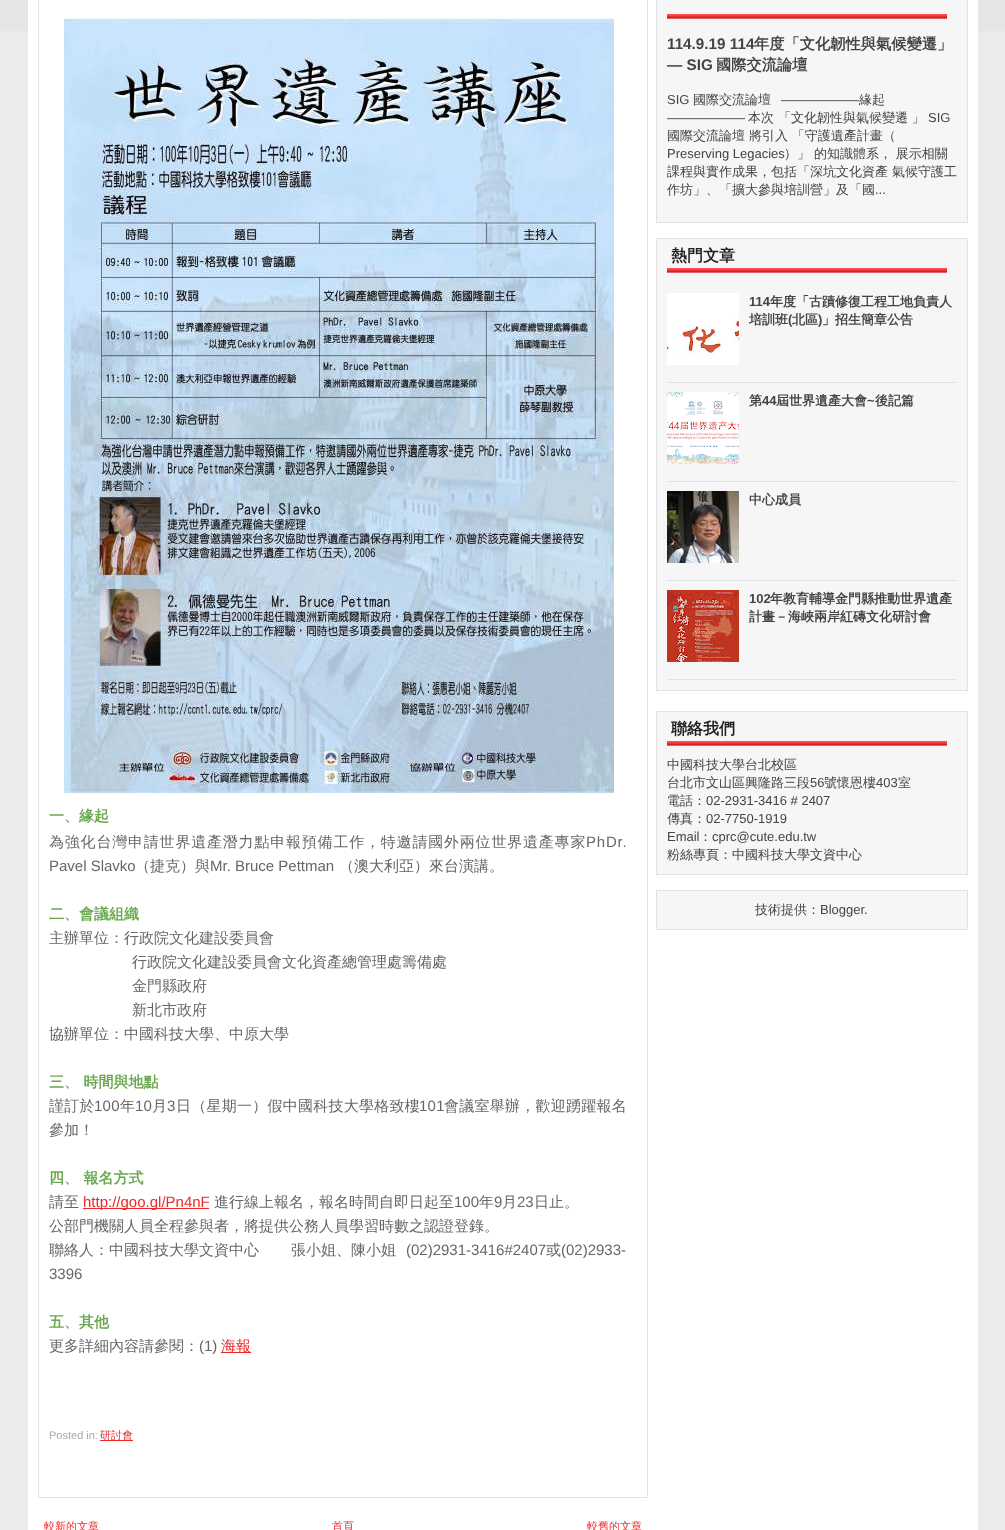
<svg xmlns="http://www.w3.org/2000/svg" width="1005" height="1530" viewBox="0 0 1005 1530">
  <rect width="100%" height="100%" fill="rgb(235,235,235)"/>
  <rect x="0" y="0" width="1005" height="31" fill="rgb(230,230,230)"/>
  <rect x="28" y="0" width="950" height="1530" fill="rgb(255,255,255)"/>
  <rect x="656.5" y="-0.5" width="311" height="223" fill="rgb(246,246,246)" stroke="rgb(226,226,226)"/>
  <image x="667" y="14" width="280" height="5" href="pic1.png"/>
  <text x="667" y="49" font-family="Liberation Sans" font-size="15.25" font-weight="bold" fill="rgb(68,68,68)">114.9.19 114</text>
  <text x="754" y="49" font-family="WenQuanYi Zen Hei" font-size="15.25" font-weight="bold" fill="rgb(68,68,68)">年度「文化韌性與氣候變遷」</text>
  <text x="667" y="70" font-family="Liberation Sans" font-size="15.25" font-weight="bold" fill="rgb(68,68,68)">— SIG</text>
  <text x="716" y="70" font-family="WenQuanYi Zen Hei" font-size="15.25" font-weight="bold" fill="rgb(68,68,68)">國際交流論壇</text>
  <text x="667" y="104" font-family="Liberation Sans" font-size="13" fill="rgb(68,68,68)">SIG</text>
  <text x="693" y="104" font-family="WenQuanYi Zen Hei" font-size="13" font-weight="500" fill="rgb(68,68,68)">國際交流論壇</text>
  <text x="781" y="104" font-family="Liberation Sans" font-size="13" fill="rgb(68,68,68)">——————</text>
  <text x="859" y="104" font-family="WenQuanYi Zen Hei" font-size="13" font-weight="500" fill="rgb(68,68,68)">緣起</text>
  <text x="667" y="122" font-family="Liberation Sans" font-size="13" fill="rgb(68,68,68)">——————</text>
  <text x="748" y="122" font-family="WenQuanYi Zen Hei" font-size="13" font-weight="500" fill="rgb(68,68,68)">本次 「文化韌性與氣候變遷 」</text>
  <text x="928" y="122" font-family="Liberation Sans" font-size="13" fill="rgb(68,68,68)">SIG</text>
  <text x="667" y="140" font-family="WenQuanYi Zen Hei" font-size="13" font-weight="500" fill="rgb(68,68,68)">國際交流論壇 將引入 「守護遺產計畫（</text>
  <text x="667" y="158" font-family="Liberation Sans" font-size="13" fill="rgb(68,68,68)">Preserving Legacies</text>
  <g font-family="WenQuanYi Zen Hei" font-size="13" font-weight="500" fill="rgb(68,68,68)">
    <text x="784" y="158">）」 的知識體系， 展示相關</text>
    <text>
      <tspan x="667" y="176">課程與實作成果，包括「深坑文化資產 氣候守護工</tspan>
      <tspan x="667" y="194">作坊」、「擴大參與培訓營」及「國</tspan>
    </text>
  </g>
  <text x="875" y="194" font-family="Liberation Sans" font-size="13" fill="rgb(68,68,68)">...</text>
  <rect x="656.5" y="238.5" width="311" height="452" fill="rgb(246,246,246)" stroke="rgb(226,226,226)"/>
  <image x="667" y="268" width="280" height="5" href="pic1.png"/>
  <text x="671" y="261" font-family="WenQuanYi Zen Hei" font-size="16" font-weight="bold" fill="rgb(34,30,31)">熱門文章</text>
  <rect x="667" y="382" width="290" height="1" fill="rgb(226,226,226)"/>
  <image x="667" y="293" width="72" height="72" href="pic2.png"/>
  <text x="749" y="306" font-family="Liberation Sans" font-size="13" font-weight="bold" fill="rgb(68,68,68)">114</text>
  <g font-family="WenQuanYi Zen Hei" font-size="13" font-weight="bold" fill="rgb(68,68,68)">
    <text x="770" y="306">年度「古蹟修復工程工地負責人</text>
    <text x="749" y="324">培訓班</text>
  </g>
  <text x="788" y="324" font-family="Liberation Sans" font-size="13" font-weight="bold" fill="rgb(68,68,68)">(</text>
  <text x="792" y="324" font-family="WenQuanYi Zen Hei" font-size="13" font-weight="bold" fill="rgb(68,68,68)">北區</text>
  <text x="818" y="324" font-family="Liberation Sans" font-size="13" font-weight="bold" fill="rgb(68,68,68)">)</text>
  <text x="822" y="324" font-family="WenQuanYi Zen Hei" font-size="13" font-weight="bold" fill="rgb(68,68,68)">」招生簡章公告</text>
  <rect x="667" y="481" width="290" height="1" fill="rgb(226,226,226)"/>
  <image x="667" y="392" width="72" height="72" href="pic3.png"/>
  <text x="749" y="405" font-family="WenQuanYi Zen Hei" font-size="13" font-weight="bold" fill="rgb(68,68,68)">第</text>
  <text x="762" y="405" font-family="Liberation Sans" font-size="13" font-weight="bold" fill="rgb(68,68,68)">44</text>
  <text x="776" y="405" font-family="WenQuanYi Zen Hei" font-size="13" font-weight="bold" fill="rgb(68,68,68)">屆世界遺產大會</text>
  <text x="867" y="405" font-family="Liberation Sans" font-size="13" font-weight="bold" fill="rgb(68,68,68)">~</text>
  <text x="875" y="405" font-family="WenQuanYi Zen Hei" font-size="13" font-weight="bold" fill="rgb(68,68,68)">後記篇</text>
  <rect x="667" y="580" width="290" height="1" fill="rgb(226,226,226)"/>
  <image x="667" y="491" width="72" height="72" href="pic4.png"/>
  <text x="749" y="504" font-family="WenQuanYi Zen Hei" font-size="13" font-weight="bold" fill="rgb(68,68,68)">中心成員</text>
  <rect x="667" y="679" width="290" height="1" fill="rgb(226,226,226)"/>
  <image x="667" y="590" width="72" height="72" href="pic5.png"/>
  <text x="749" y="603" font-family="Liberation Sans" font-size="13" font-weight="bold" fill="rgb(68,68,68)">102</text>
  <g font-family="WenQuanYi Zen Hei" font-size="13" font-weight="bold" fill="rgb(68,68,68)">
    <text x="770" y="603">年教育輔導金門縣推動世界遺產</text>
    <text x="749" y="621">計畫－海峽兩岸紅磚文化研討會</text>
  </g>
  <rect x="656.5" y="711.5" width="311" height="163" fill="rgb(246,246,246)" stroke="rgb(226,226,226)"/>
  <image x="667" y="741" width="280" height="5" href="pic1.png"/>
  <text x="671" y="734" font-family="WenQuanYi Zen Hei" font-size="16" font-weight="bold" fill="rgb(34,30,31)">聯絡我們</text>
  <g font-family="WenQuanYi Zen Hei" font-size="13" font-weight="500" fill="rgb(68,68,68)">
    <text>
      <tspan x="667" y="769">中國科技大學台北校區</tspan>
      <tspan x="667" y="787">台北市文山區興隆路三段</tspan>
    </text>
  </g>
  <text x="810" y="787" font-family="Liberation Sans" font-size="13" fill="rgb(68,68,68)">56</text>
  <text x="824" y="787" font-family="WenQuanYi Zen Hei" font-size="13" font-weight="500" fill="rgb(68,68,68)">號懷恩樓</text>
  <text x="876" y="787" font-family="Liberation Sans" font-size="13" fill="rgb(68,68,68)">403</text>
  <g font-family="WenQuanYi Zen Hei" font-size="13" font-weight="500" fill="rgb(68,68,68)">
    <text x="898" y="787">室</text>
    <text x="667" y="805">電話：</text>
  </g>
  <text x="706" y="805" font-family="Liberation Sans" font-size="13" fill="rgb(68,68,68)">02-2931-3416 # 2407</text>
  <text x="667" y="823" font-family="WenQuanYi Zen Hei" font-size="13" font-weight="500" fill="rgb(68,68,68)">傳真：</text>
  <g font-family="Liberation Sans" font-size="13" fill="rgb(68,68,68)">
    <text x="706" y="823">02-7750-1919</text>
    <text x="667" y="841">Email</text>
  </g>
  <text x="699" y="841" font-family="WenQuanYi Zen Hei" font-size="13" font-weight="500" fill="rgb(68,68,68)">：</text>
  <text x="712" y="841" font-family="Liberation Sans" font-size="13" fill="rgb(68,68,68)">cprc@cute.edu.tw</text>
  <text x="667" y="859" font-family="WenQuanYi Zen Hei" font-size="13" font-weight="500" fill="rgb(68,68,68)">粉絲專頁：中國科技大學文資中心</text>
  <rect x="656.5" y="890.5" width="311" height="39" fill="rgb(246,246,246)" stroke="rgb(226,226,226)"/>
  <text x="755" y="914" font-family="WenQuanYi Zen Hei" font-size="13" font-weight="500" fill="rgb(68,68,68)">技術提供：</text>
  <g font-family="Liberation Sans" font-size="13" fill="rgb(68,68,68)">
    <text x="820" y="914">Blogger</text>
    <text x="864" y="914">.</text>
  </g>
  <rect x="38.5" y="-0.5" width="609" height="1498" fill="none" stroke="rgb(227,227,227)"/>
  <image x="64" y="18" width="550" height="775" href="pic6.png"/>
  <text x="49" y="821" font-family="WenQuanYi Zen Hei" font-size="15" font-weight="bold" fill="rgb(106,168,79)">一、緣起</text>
  <text x="49" y="847" font-family="WenQuanYi Zen Hei" font-size="15" font-weight="500" letter-spacing="0.8" fill="rgb(102,102,102)">為強化台灣申請世界遺產潛力點申報預備工作，特邀請國外兩位世界遺產專家</text>
  <text x="586" y="847" font-family="Liberation Sans" font-size="15" letter-spacing="0.8" fill="rgb(102,102,102)">PhDr.</text>
  <text x="49" y="871" font-family="Liberation Sans" font-size="15" fill="rgb(102,102,102)">Pavel Slavko</text>
  <text x="135" y="871" font-family="WenQuanYi Zen Hei" font-size="15" font-weight="500" fill="rgb(102,102,102)">（捷克）與</text>
  <text x="210" y="871" font-family="Liberation Sans" font-size="15" fill="rgb(102,102,102)">Mr. Bruce Pettman</text>
  <text x="339" y="871" font-family="WenQuanYi Zen Hei" font-size="15" font-weight="500" fill="rgb(102,102,102)">（澳大利亞）來台演講。</text>
  <text x="49" y="919" font-family="WenQuanYi Zen Hei" font-size="15" font-weight="bold" fill="rgb(106,168,79)">二、會議組織</text>
  <g font-family="WenQuanYi Zen Hei" font-size="15" font-weight="500" fill="rgb(102,102,102)">
    <text x="49" y="943">主辦單位：行政院文化建設委員會</text>
    <text>
      <tspan x="132" y="967">行政院文化建設委員會文化資產總管理處籌備處</tspan>
      <tspan x="132" y="991">金門縣政府</tspan>
      <tspan x="132" y="1015">新北市政府</tspan>
    </text>
    <text x="49" y="1039">協辦單位：中國科技大學、中原大學</text>
  </g>
  <text x="49" y="1087" font-family="WenQuanYi Zen Hei" font-size="15" font-weight="bold" fill="rgb(106,168,79)">三、 時間與地點</text>
  <text x="49" y="1111" font-family="WenQuanYi Zen Hei" font-size="15" font-weight="500" letter-spacing="0.25" fill="rgb(102,102,102)">謹訂於</text>
  <text x="94" y="1111" font-family="Liberation Sans" font-size="15" letter-spacing="0.25" fill="rgb(102,102,102)">100</text>
  <text x="120" y="1111" font-family="WenQuanYi Zen Hei" font-size="15" font-weight="500" letter-spacing="0.25" fill="rgb(102,102,102)">年</text>
  <text x="135" y="1111" font-family="Liberation Sans" font-size="15" letter-spacing="0.25" fill="rgb(102,102,102)">10</text>
  <text x="152" y="1111" font-family="WenQuanYi Zen Hei" font-size="15" font-weight="500" letter-spacing="0.25" fill="rgb(102,102,102)">月</text>
  <text x="167" y="1111" font-family="Liberation Sans" font-size="15" letter-spacing="0.25" fill="rgb(102,102,102)">3</text>
  <text x="176" y="1111" font-family="WenQuanYi Zen Hei" font-size="15" font-weight="500" letter-spacing="0.25" fill="rgb(102,102,102)">日（星期一）假中國科技大學格致樓</text>
  <text x="419" y="1111" font-family="Liberation Sans" font-size="15" letter-spacing="0.25" fill="rgb(102,102,102)">101</text>
  <text x="444" y="1111" font-family="WenQuanYi Zen Hei" font-size="15" font-weight="500" letter-spacing="0.25" fill="rgb(102,102,102)">會議室舉辦，歡迎踴躍報名</text>
  <text x="49" y="1135" font-family="WenQuanYi Zen Hei" font-size="15" font-weight="500" fill="rgb(102,102,102)">參加！</text>
  <text x="49" y="1183" font-family="WenQuanYi Zen Hei" font-size="15" font-weight="bold" fill="rgb(106,168,79)">四、 報名方式</text>
  <text x="49" y="1207" font-family="WenQuanYi Zen Hei" font-size="15" font-weight="500" fill="rgb(102,102,102)">請至</text>
  <rect x="83" y="1208" width="126" height="1" fill="rgb(237,41,42)"/>
  <text x="83" y="1207" font-family="Liberation Sans" font-size="15" fill="rgb(237,41,42)">http://goo.gl/Pn4nF</text>
  <text x="214" y="1207" font-family="WenQuanYi Zen Hei" font-size="15" font-weight="500" fill="rgb(102,102,102)">進行線上報名，報名時間自即日起至</text>
  <text x="454" y="1207" font-family="Liberation Sans" font-size="15" fill="rgb(102,102,102)">100</text>
  <text x="479" y="1207" font-family="WenQuanYi Zen Hei" font-size="15" font-weight="500" fill="rgb(102,102,102)">年</text>
  <text x="494" y="1207" font-family="Liberation Sans" font-size="15" fill="rgb(102,102,102)">9</text>
  <text x="502" y="1207" font-family="WenQuanYi Zen Hei" font-size="15" font-weight="500" fill="rgb(102,102,102)">月</text>
  <text x="517" y="1207" font-family="Liberation Sans" font-size="15" fill="rgb(102,102,102)">23</text>
  <g font-family="WenQuanYi Zen Hei" font-size="15" font-weight="500" fill="rgb(102,102,102)">
    <text x="534" y="1207">日止。</text>
    <text>
      <tspan x="49" y="1231">公部門機關人員全程參與者，將提供公務人員學習時數之認證登錄。</tspan>
      <tspan x="49" y="1255">聯絡人：中國科技大學文資中心</tspan>
    </text>
    <text x="291" y="1255">張小姐、陳小姐</text>
  </g>
  <text x="406" y="1255" font-family="Liberation Sans" font-size="15" fill="rgb(102,102,102)">(02)2931-3416#2407</text>
  <text x="546" y="1255" font-family="WenQuanYi Zen Hei" font-size="15" font-weight="500" fill="rgb(102,102,102)">或</text>
  <g font-family="Liberation Sans" font-size="15" fill="rgb(102,102,102)">
    <text x="561" y="1255">(02)2933-</text>
    <text x="49" y="1279">3396</text>
  </g>
  <text x="49" y="1327" font-family="WenQuanYi Zen Hei" font-size="15" font-weight="bold" fill="rgb(106,168,79)">五、其他</text>
  <text x="49" y="1351" font-family="WenQuanYi Zen Hei" font-size="15" font-weight="500" fill="rgb(102,102,102)">更多詳細內容請參閱：</text>
  <text x="199" y="1351" font-family="Liberation Sans" font-size="15" fill="rgb(102,102,102)">(1)</text>
  <rect x="221" y="1352" width="30" height="1" fill="rgb(237,41,42)"/>
  <text x="221" y="1351" font-family="WenQuanYi Zen Hei" font-size="15" font-weight="500" fill="rgb(237,41,42)">海報</text>
  <text x="49" y="1439" font-family="Liberation Sans" font-size="11" fill="rgb(168,168,168)">Posted in:</text>
  <rect x="100" y="1440" width="33" height="1" fill="rgb(237,41,42)"/>
  <g font-family="WenQuanYi Zen Hei" font-size="11" font-weight="500" fill="rgb(237,41,42)">
    <text x="100" y="1439">研討會</text>
    <text x="44" y="1530">較新的文章</text>
    <text x="332" y="1530">首頁</text>
    <text x="587" y="1530">較舊的文章</text>
  </g>
</svg>
